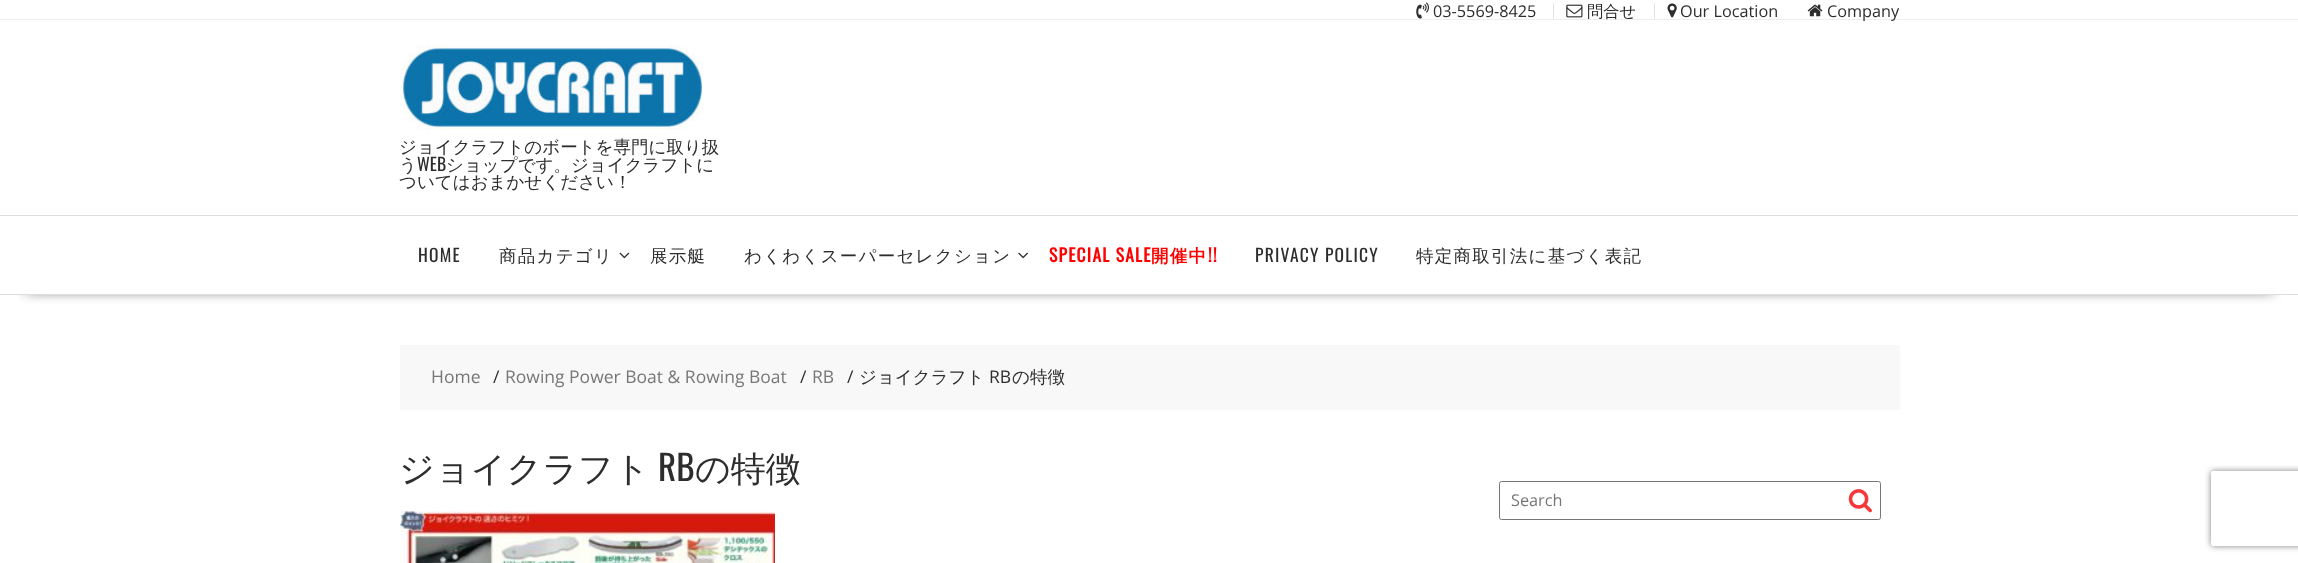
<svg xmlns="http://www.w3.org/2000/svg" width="2298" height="563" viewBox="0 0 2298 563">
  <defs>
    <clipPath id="clip1"><rect x="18" y="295" width="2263" height="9"/></clipPath>
    <clipPath id="clip2"><path d="M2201 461H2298V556H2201ZM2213.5 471H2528.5C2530 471 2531 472 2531 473.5V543.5C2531 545 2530 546 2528.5 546H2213.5C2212 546 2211 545 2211 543.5V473.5C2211 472 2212 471 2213.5 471Z" clip-rule="evenodd"/></clipPath>
  </defs>
  <rect width="100%" height="100%" fill="rgb(255,255,255)"/>
  <rect x="0" y="19" width="2298" height="1" fill="rgb(238,238,238)"/>
  <image x="1416" y="2" width="13" height="17" href="pic1.png"/>
  <text x="1433" y="17" font-family="Open Sans" font-size="16.25" fill="rgb(45,45,45)">03-5569-8425</text>
  <rect x="1553" y="3" width="1" height="16" fill="rgb(226,226,228)"/>
  <image x="1566" y="4" width="17" height="14" href="pic2.png"/>
  <text x="1587" y="17" font-family="WenQuanYi Zen Hei" font-size="16.25" font-weight="500" fill="rgb(45,45,45)">問合せ</text>
  <rect x="1654" y="3" width="1" height="16" fill="rgb(226,226,228)"/>
  <image x="1667" y="3" width="10" height="15" href="pic3.png"/>
  <text x="1680" y="17" font-family="Open Sans" font-size="16.25" fill="rgb(45,45,45)">Our Location</text>
  <image x="1807" y="4" width="16" height="13" href="pic4.png"/>
  <text x="1827" y="17" font-family="Open Sans" font-size="16.25" fill="rgb(45,45,45)">Company</text>
  <image x="400" y="45" width="303" height="85" href="pic5.png"/>
  <g font-family="WenQuanYi Zen Hei" font-size="17.5" font-weight="500" fill="rgb(45,45,45)">
    <text>
      <tspan x="399" y="153">ジョイクラフトのボートを専門に取り扱</tspan>
      <tspan x="399" y="171">う</tspan>
    </text>
  </g>
  <text x="417" y="171" font-family="Oswald" font-size="17.5" fill="rgb(45,45,45)">WEB</text>
  <g font-family="WenQuanYi Zen Hei" font-size="17.5" font-weight="500" fill="rgb(45,45,45)">
    <text x="446" y="171">ショップです。ジョイクラフトに</text>
    <text x="399" y="188">ついてはおまかせください！</text>
  </g>
  <g clip-path="url(#clip1)">
    <rect x="26" y="263" width="2247" height="27" fill="rgba(0,0,0,0.75)" filter="blur(7px)"/>
  </g>
  <rect x="0" y="215" width="2298" height="1" fill="rgb(222,222,222)"/>
  <rect x="0" y="294" width="2298" height="1" fill="rgb(222,222,222)"/>
  <text x="418" y="262" font-family="Oswald" font-size="17.5" letter-spacing="1.25" fill="rgb(45,45,45)">HOME</text>
  <text x="499" y="262" font-family="WenQuanYi Zen Hei" font-size="17.5" font-weight="500" letter-spacing="1.25" fill="rgb(45,45,45)">商品カテゴリ</text>
  <image x="619" y="252" width="11" height="7" href="pic6.png"/>
  <g font-family="WenQuanYi Zen Hei" font-size="17.5" font-weight="500" letter-spacing="1.25" fill="rgb(45,45,45)">
    <text x="650" y="262">展示艇</text>
    <text x="744" y="262">わくわくスーパーセレクション</text>
  </g>
  <image x="1018" y="252" width="10" height="7" href="pic7.png"/>
  <text x="1049" y="262" font-family="Oswald" font-size="17.5" font-weight="bold" letter-spacing="1.25" fill="rgb(255,0,0)">SPECIAL SALE</text>
  <text x="1151" y="262" font-family="WenQuanYi Zen Hei" font-size="17.5" font-weight="bold" letter-spacing="1.25" fill="rgb(255,0,0)">開催中</text>
  <text x="1208" y="262" font-family="Oswald" font-size="17.5" font-weight="bold" letter-spacing="1.25" fill="rgb(255,0,0)">!!</text>
  <text x="1255" y="262" font-family="Oswald" font-size="17.5" letter-spacing="1.25" fill="rgb(45,45,45)">PRIVACY POLICY</text>
  <text x="1416" y="262" font-family="WenQuanYi Zen Hei" font-size="17.5" font-weight="500" letter-spacing="1.25" fill="rgb(45,45,45)">特定商取引法に基づく表記</text>
  <rect x="400" y="345" width="1500" height="65" fill="rgb(248,248,248)"/>
  <text x="431" y="383" font-family="Open Sans" font-size="17.5" fill="rgb(119,119,119)">Home</text>
  <text x="493" y="383" font-family="Open Sans" font-size="17.5" fill="rgb(45,45,45)">/</text>
  <text x="505" y="383" font-family="Open Sans" font-size="17.5" fill="rgb(119,119,119)">Rowing Power Boat &amp; Rowing Boat</text>
  <text x="800" y="383" font-family="Open Sans" font-size="17.5" fill="rgb(45,45,45)">/</text>
  <text x="812" y="383" font-family="Open Sans" font-size="17.5" fill="rgb(119,119,119)">RB</text>
  <text x="847" y="383" font-family="Open Sans" font-size="17.5" fill="rgb(45,45,45)">/</text>
  <text x="859" y="383" font-family="WenQuanYi Zen Hei" font-size="17.5" font-weight="500" fill="rgb(45,45,45)">ジョイクラフト</text>
  <text x="989" y="383" font-family="Open Sans" font-size="17.5" fill="rgb(45,45,45)">RB</text>
  <text x="1012" y="383" font-family="WenQuanYi Zen Hei" font-size="17.5" font-weight="500" fill="rgb(45,45,45)">の特徴</text>
  <text x="399" y="481" font-family="WenQuanYi Zen Hei" font-size="35" font-weight="500" fill="rgb(45,45,45)">ジョイクラフト</text>
  <text x="658" y="481" font-family="Oswald" font-size="35" fill="rgb(45,45,45)">RB</text>
  <text x="695" y="481" font-family="WenQuanYi Zen Hei" font-size="35" font-weight="500" fill="rgb(45,45,45)">の特徴</text>
  <image x="400" y="511" width="375" height="52" href="pic8.png"/>
  <rect x="1499.5" y="481.5" width="381" height="38" rx="2" fill="none" stroke="rgb(118,118,118)"/>
  <text x="1511" y="506" font-family="Open Sans" font-size="16.25" fill="rgb(119,119,119)">Search</text>
  <image x="1848" y="489" width="24" height="24" href="pic9.png"/>
  <g clip-path="url(#clip2)">
    <rect x="2211" y="471" width="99" height="75" rx="2.5" fill="rgb(128,128,128)" filter="blur(3px)"/>
  </g>
</svg>
